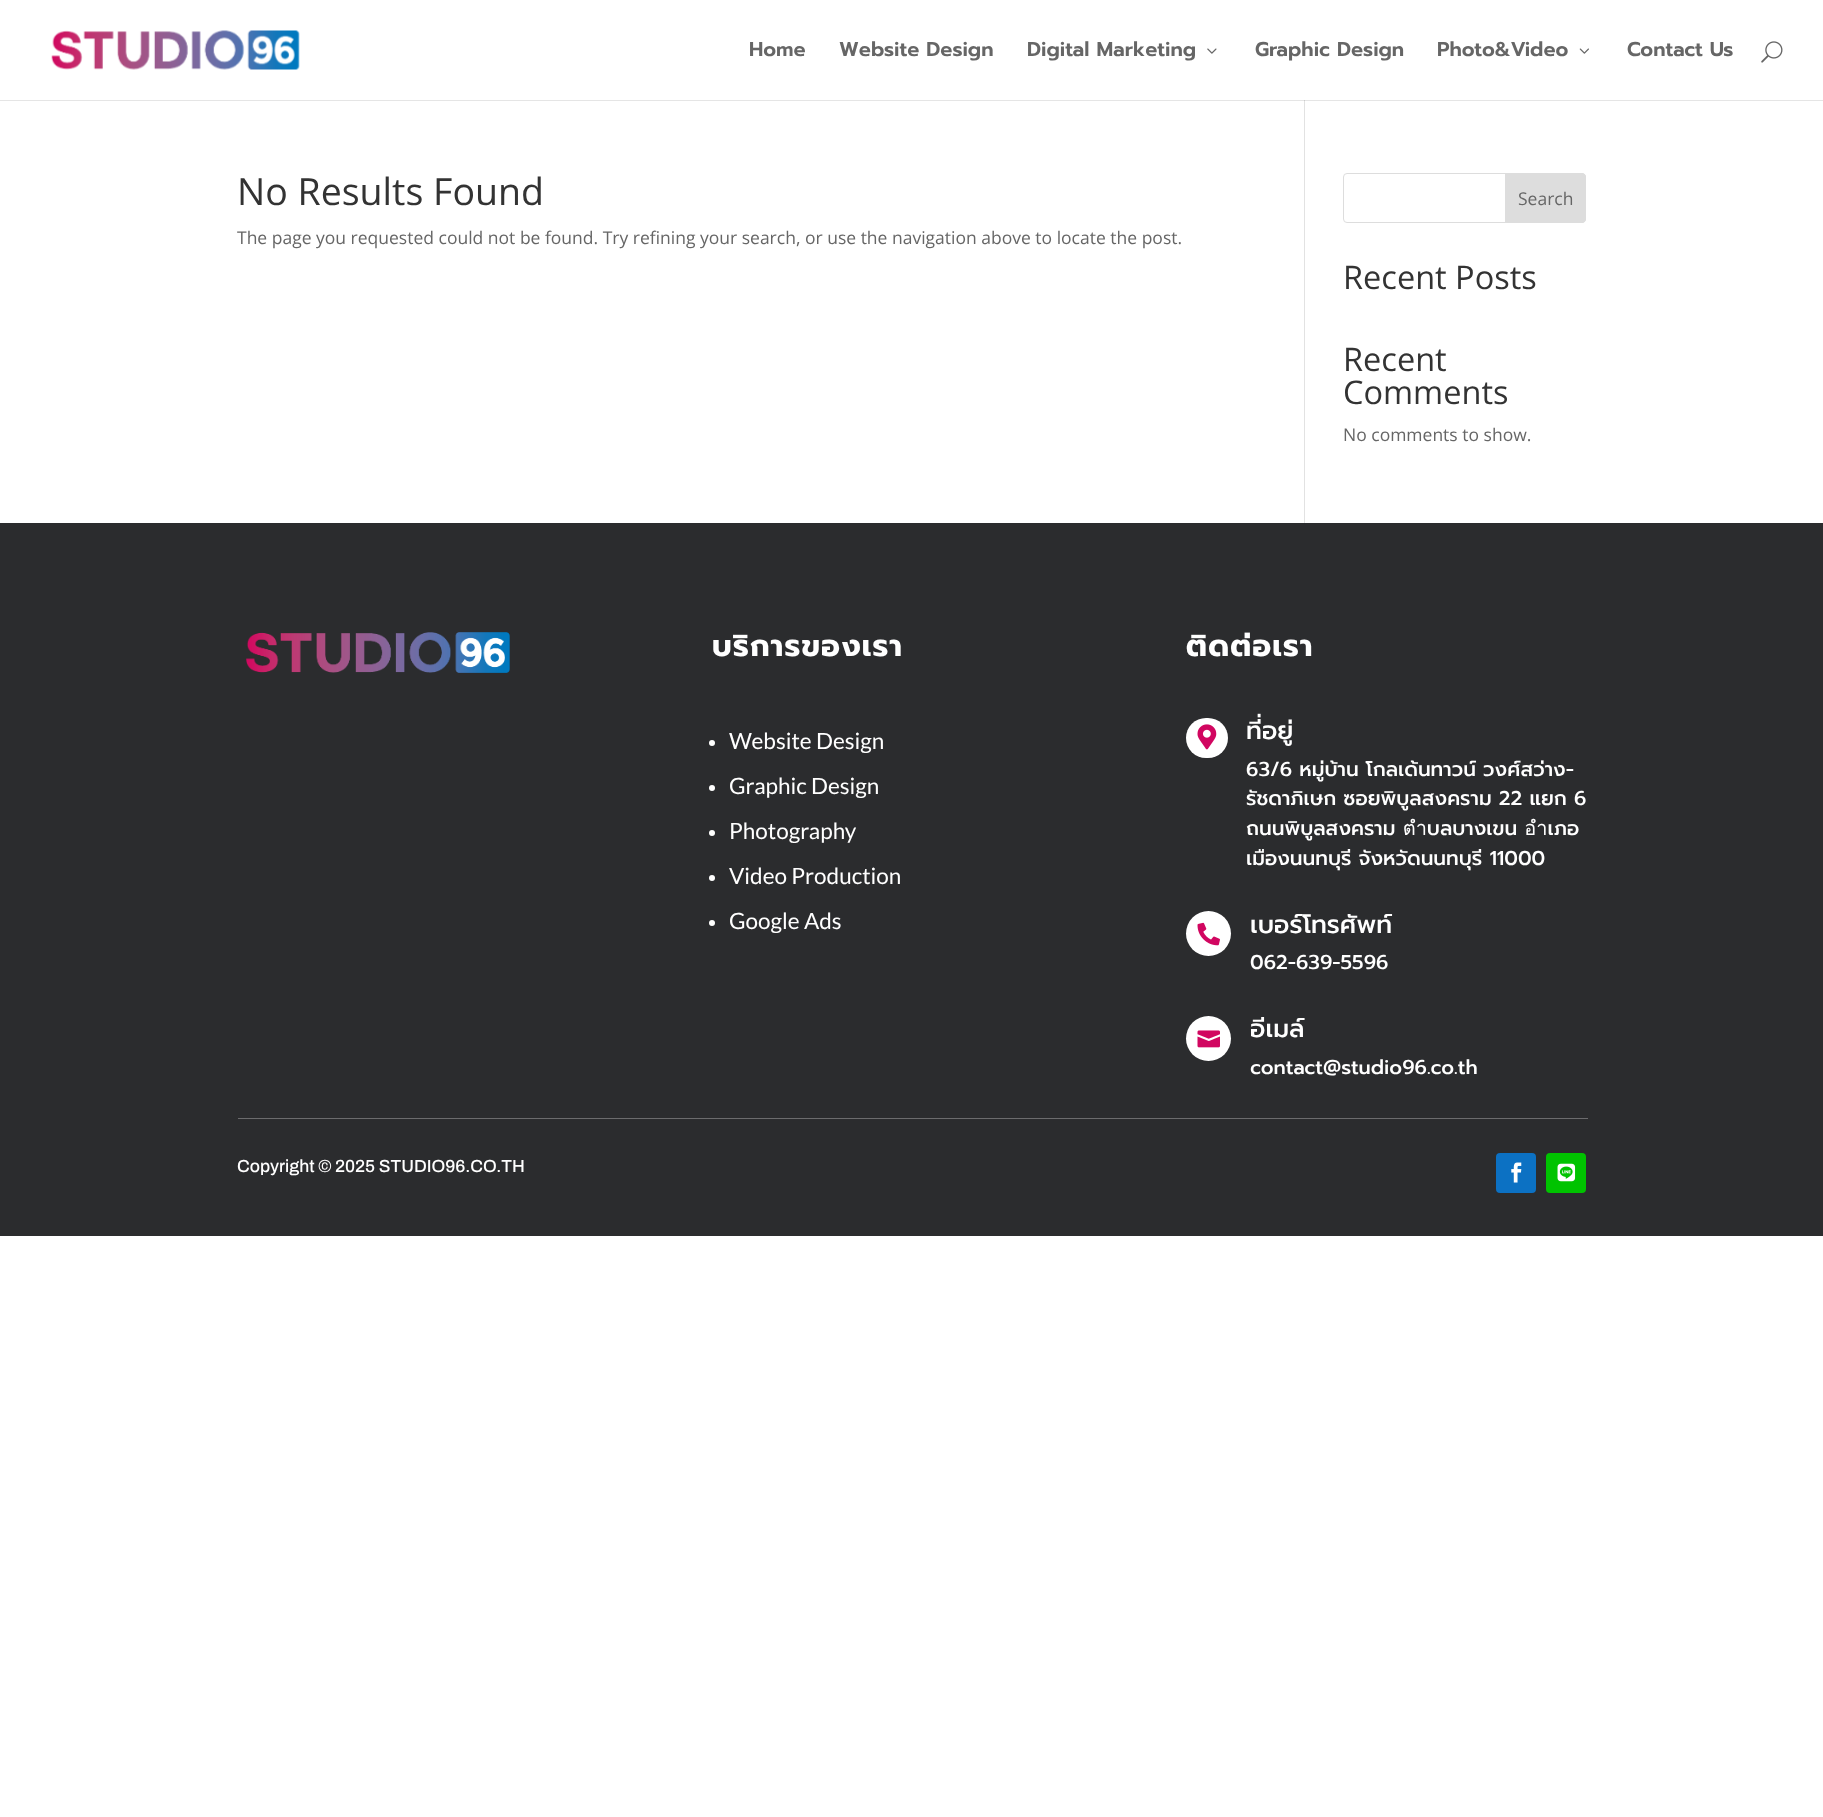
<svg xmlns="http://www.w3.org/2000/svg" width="1823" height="1817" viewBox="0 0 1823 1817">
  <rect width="100%" height="100%" fill="rgb(255,255,255)"/>
  <rect x="1304" y="100" width="1" height="423" fill="rgb(226,226,226)"/>
  <path d="M0 100V101H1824V1V100Z" fill="rgba(0,0,0,0.1)"/>
  <image x="51" y="30" width="249" height="40" href="pic1.png"/>
  <g font-family="Prompt" font-size="20" font-weight="600" fill="rgb(102,102,102)">
    <text x="749" y="56">Home</text>
    <text x="839" y="56">Website Design</text>
    <text x="1027" y="56">Digital Marketing</text>
  </g>
  <image x="1207" y="48" width="10" height="6" href="pic2.png"/>
  <g font-family="Prompt" font-size="20" font-weight="600" fill="rgb(102,102,102)">
    <text x="1255" y="56">Graphic Design</text>
    <text x="1437" y="56">Photo&amp;Video</text>
  </g>
  <image x="1579" y="48" width="10" height="6" href="pic3.png"/>
  <text x="1627" y="56" font-family="Prompt" font-size="20" font-weight="600" fill="rgb(102,102,102)">Contact Us</text>
  <image x="1761" y="41" width="22" height="22" href="pic4.png"/>
  <text x="237" y="205" font-family="Open Sans" font-size="37.5" fill="rgb(51,51,51)">No Results Found</text>
  <text x="237" y="244" font-family="Open Sans" font-size="17.5" fill="rgb(102,102,102)">The page you requested could not be found. Try refining your search, or use the navigation above to locate the post.</text>
  <rect x="1343.5" y="173.5" width="242" height="49" rx="3.5" fill="none" stroke="rgb(221,221,221)"/>
  <path d="M1505.5 173.5H1582C1584 173.5 1585.5 175 1585.5 177V219C1585.5 221 1584 222.5 1582 222.5H1505.5Z" fill="rgb(221,221,221)" stroke="rgb(221,221,221)"/>
  <text x="1518" y="205" font-family="Open Sans" font-size="17.5" fill="rgb(102,102,102)">Search</text>
  <g font-family="Open Sans" font-size="32.5" fill="rgb(51,51,51)">
    <text x="1343" y="289">Recent Posts</text>
    <text>
      <tspan x="1343" y="371">Recent</tspan>
      <tspan x="1343" y="404">Comments</tspan>
    </text>
  </g>
  <text x="1343" y="441" font-family="Open Sans" font-size="17.5" fill="rgb(102,102,102)">No comments to show.</text>
  <rect x="0" y="523" width="1823" height="713" fill="rgb(43,44,46)"/>
  <image x="246" y="632" width="264" height="41" href="pic5.png"/>
  <text x="712" y="656" font-family="Prompt" font-size="30" font-weight="bold" letter-spacing="1.25" fill="rgb(255,255,255)">บริการของเรา</text>
  <circle cx="712" cy="743" r="3" fill="rgb(255,255,255)"/>
  <text x="729" y="749" font-family="Lato" font-size="22.5" fill="rgb(255,255,255)">Website Design</text>
  <circle cx="712" cy="788" r="3" fill="rgb(255,255,255)"/>
  <text x="729" y="794" font-family="Lato" font-size="22.5" fill="rgb(255,255,255)">Graphic Design</text>
  <circle cx="712" cy="833" r="3" fill="rgb(255,255,255)"/>
  <text x="729" y="839" font-family="Lato" font-size="22.5" fill="rgb(255,255,255)">Photography</text>
  <circle cx="712" cy="878" r="3" fill="rgb(255,255,255)"/>
  <text x="729" y="884" font-family="Lato" font-size="22.5" fill="rgb(255,255,255)">Video Production</text>
  <circle cx="712" cy="923" r="3" fill="rgb(255,255,255)"/>
  <text x="729" y="929" font-family="Lato" font-size="22.5" fill="rgb(255,255,255)">Google Ads</text>
  <text x="1186" y="656" font-family="Prompt" font-size="30" font-weight="bold" letter-spacing="1.25" fill="rgb(255,255,255)">ติดต่อเรา</text>
  <rect x="1186" y="718" width="42" height="40" rx="20" fill="rgb(255,255,255)"/>
  <image x="1197" y="724" width="20" height="26" href="pic6.png"/>
  <text x="1246" y="739" font-family="Prompt" font-size="25" font-weight="500" fill="rgb(255,255,255)">ที่อยู่</text>
  <g font-family="Prompt" font-size="20" font-weight="500" fill="rgb(255,255,255)">
    <text>
      <tspan x="1246" y="776">63/6 หมู่บ้าน โกลเด้นทาวน์ วงศ์สว่าง-</tspan>
      <tspan x="1246" y="805">รัชดาภิเษก ซอยพิบูลสงคราม 22 แยก 6</tspan>
      <tspan x="1246" y="835">ถนนพิบูลสงคราม ตำบลบางเขน อำเภอ</tspan>
      <tspan x="1246" y="865">เมืองนนทบุรี จังหวัดนนทบุรี 11000</tspan>
    </text>
  </g>
  <circle cx="1208.5" cy="933.5" r="22.5" fill="rgb(255,255,255)"/>
  <image x="1197" y="922" width="23" height="24" href="pic7.png"/>
  <text x="1250" y="933" font-family="Prompt" font-size="25" font-weight="500" fill="rgb(255,255,255)">เบอร์โทรศัพท์</text>
  <text x="1250" y="969" font-family="Prompt" font-size="20" font-weight="500" fill="rgb(255,255,255)">062-639-5596</text>
  <circle cx="1208.5" cy="1038.5" r="22.5" fill="rgb(255,255,255)"/>
  <image x="1197" y="1030" width="23" height="18" href="pic8.png"/>
  <text x="1250" y="1037" font-family="Prompt" font-size="25" font-weight="500" fill="rgb(255,255,255)">อีเมล์</text>
  <text x="1250" y="1074" font-family="Prompt" font-size="20" font-weight="500" fill="rgb(255,255,255)">contact@studio96.co.th</text>
  <rect x="238" y="1118" width="1350" height="1" fill="rgb(107,107,109)"/>
  <text x="237" y="1172" font-family="Archivo" font-size="17.5" font-weight="500" fill="rgb(255,255,255)">Copyright © 2025 STUDIO96.CO.TH</text>
  <rect x="1496" y="1153" width="40" height="40" rx="4" fill="rgb(12,113,195)"/>
  <image x="1511" y="1162" width="11" height="21" href="pic9.png"/>
  <rect x="1546" y="1153" width="40" height="40" rx="4" fill="rgb(0,195,0)"/>
  <image x="1557" y="1163" width="19" height="19" href="pic10.png"/>
</svg>
